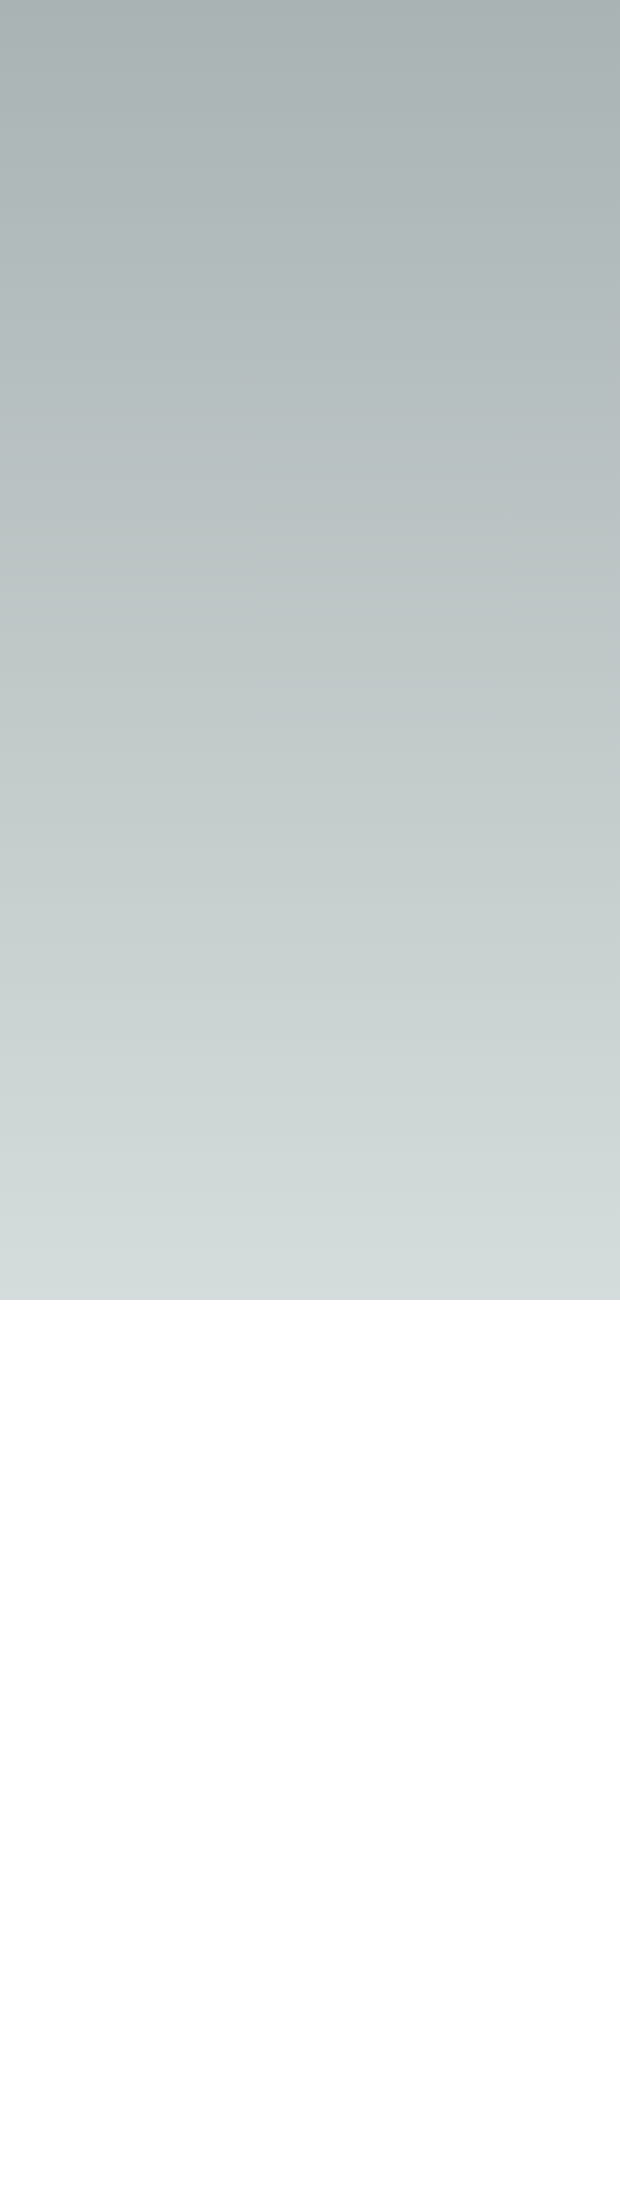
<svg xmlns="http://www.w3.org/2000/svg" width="620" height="2192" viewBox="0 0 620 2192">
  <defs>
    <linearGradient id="g1" gradientUnits="userSpaceOnUse" x1="310" y1="0" x2="310" y2="1300"><stop offset="0" stop-color="rgb(170,179,179)"/><stop offset="1" stop-color="rgb(212,220,220)"/></linearGradient>
  </defs>
  <rect width="100%" height="100%" fill="rgb(255,255,255)"/>
  <rect x="0" y="0" width="620" height="1300" fill="url(#g1)"/>
</svg>
